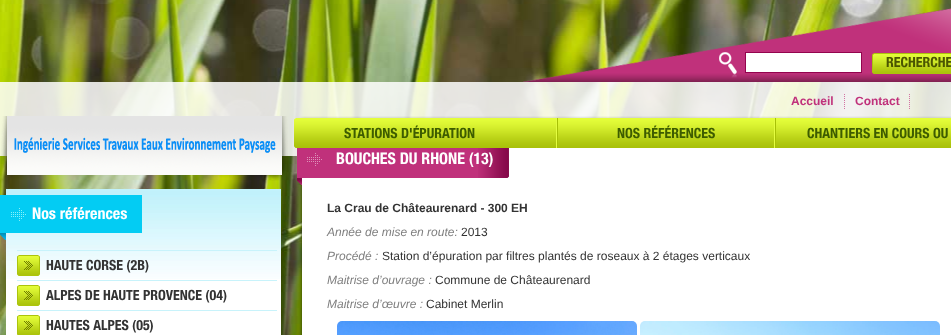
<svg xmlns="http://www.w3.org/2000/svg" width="951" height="335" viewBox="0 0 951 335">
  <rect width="100%" height="100%" fill="rgb(255,255,255)"/>
  <image x="0" y="0" width="951" height="335" href="pic1.png"/>
  <rect x="0" y="82" width="951" height="74" fill="rgba(255,255,255,0.85)"/>
  <image x="523" y="8" width="428" height="74" href="pic2.png"/>
  <rect x="745.5" y="52.5" width="116" height="20" fill="rgb(255,255,255)" stroke="rgb(147,4,78)"/>
  <image x="872" y="53" width="4" height="21" href="pic3.png"/>
  <image x="876" y="53" width="75" height="21" href="pic4.png"/>
  <text x="886" y="67" font-family="Helvetica Neue" font-size="14" font-weight="bold" fill="rgb(74,85,1)">RECHERCHE</text>
  <text x="791" y="105" font-family="Liberation Sans" font-size="12" font-weight="bold" fill="rgb(192,49,123)">Accueil</text>
  <image x="844" y="94" width="1" height="15" href="pic5.png"/>
  <text x="855" y="105" font-family="Liberation Sans" font-size="12" font-weight="bold" fill="rgb(192,49,123)">Contact</text>
  <image x="909" y="94" width="1" height="15" href="pic6.png"/>
  <image x="297" y="116" width="654" height="69" href="pic15.png"/>
  <image x="294" y="118" width="657" height="30" href="pic7.png"/>
  <text x="344" y="138" font-family="Helvetica Neue" font-size="14" font-weight="bold" fill="rgb(61,92,0)">STATIONS D'ÉPURATION</text>
  <image x="556" y="118" width="2" height="30" href="pic8.png"/>
  <text x="617" y="138" font-family="Helvetica Neue" font-size="14" font-weight="bold" fill="rgb(61,92,0)">NOS RÉFÉRENCES</text>
  <image x="774" y="118" width="2" height="30" href="pic8.png"/>
  <text x="807" y="138" font-family="Helvetica Neue" font-size="14" font-weight="bold" fill="rgb(61,92,0)">CHANTIERS EN COURS OU</text>
  <image x="1" y="116" width="287" height="65" href="pic9.png"/>
  <rect x="6" y="279" width="275" height="56" fill="rgb(255,255,255)"/>
  <image x="6" y="189" width="275" height="90" href="pic10.png"/>
  <image x="0" y="195" width="27" height="45" href="pic11.png"/>
  <rect x="27" y="195" width="115" height="38" fill="rgb(3,204,243)"/>
  <text x="32" y="219" font-family="Helvetica Neue" font-size="16" font-weight="bold" fill="rgb(255,255,255)">Nos références</text>
  <rect x="17" y="250" width="260" height="1" fill="rgb(200,243,251)"/>
  <image x="17" y="255" width="23" height="21" href="pic12.png"/>
  <text x="46" y="270" font-family="Helvetica Neue" font-size="14" font-weight="bold" fill="rgb(51,51,51)">HAUTE CORSE (2B)</text>
  <rect x="17" y="280" width="260" height="1" fill="rgb(200,243,251)"/>
  <image x="17" y="285" width="23" height="21" href="pic13.png"/>
  <text x="46" y="300" font-family="Helvetica Neue" font-size="14" font-weight="bold" fill="rgb(51,51,51)">ALPES DE HAUTE PROVENCE (04)</text>
  <rect x="17" y="310" width="260" height="1" fill="rgb(200,243,251)"/>
  <image x="17" y="315" width="23" height="20" href="pic14.png"/>
  <text x="46" y="330" font-family="Helvetica Neue" font-size="14" font-weight="bold" fill="rgb(51,51,51)">HAUTES ALPES (05)</text>
  <rect x="326" y="148" width="152" height="30" fill="rgb(192,49,123)"/>
  <image x="478" y="148" width="31" height="30" href="pic16.png"/>
  <text x="336" y="164" font-family="Helvetica Neue" font-size="16" font-weight="bold" fill="rgb(255,255,255)">BOUCHES DU RHONE (13)</text>
  <image x="298" y="185" width="653" height="150" href="pic17.png"/>
  <text x="327" y="212" font-family="Liberation Sans" font-size="12" font-weight="bold" fill="rgb(51,51,51)">La Crau de Châteaurenard - 300 EH</text>
  <text x="327" y="236" font-family="Liberation Sans" font-size="12" font-style="italic" fill="rgb(127,127,127)">Année de mise en route:</text>
  <text x="461" y="236" font-family="Liberation Sans" font-size="12" fill="rgb(51,51,51)">2013</text>
  <text x="327" y="260" font-family="Liberation Sans" font-size="12" font-style="italic" fill="rgb(127,127,127)">Procédé :</text>
  <text x="382" y="260" font-family="Liberation Sans" font-size="12" fill="rgb(51,51,51)">Station d’épuration par filtres plantés de roseaux à 2 étages verticaux</text>
  <text x="327" y="284" font-family="Liberation Sans" font-size="12" font-style="italic" fill="rgb(127,127,127)">Maitrise d’ouvrage :</text>
  <text x="435" y="284" font-family="Liberation Sans" font-size="12" fill="rgb(51,51,51)">Commune de Châteaurenard</text>
  <text x="327" y="308" font-family="Liberation Sans" font-size="12" font-style="italic" fill="rgb(127,127,127)">Maitrise d’œuvre :</text>
  <text x="426" y="308" font-family="Liberation Sans" font-size="12" fill="rgb(51,51,51)">Cabinet Merlin</text>
  <image x="337" y="321" width="300" height="14" href="pic18.png"/>
  <image x="640" y="321" width="300" height="14" href="pic19.png"/>
</svg>
